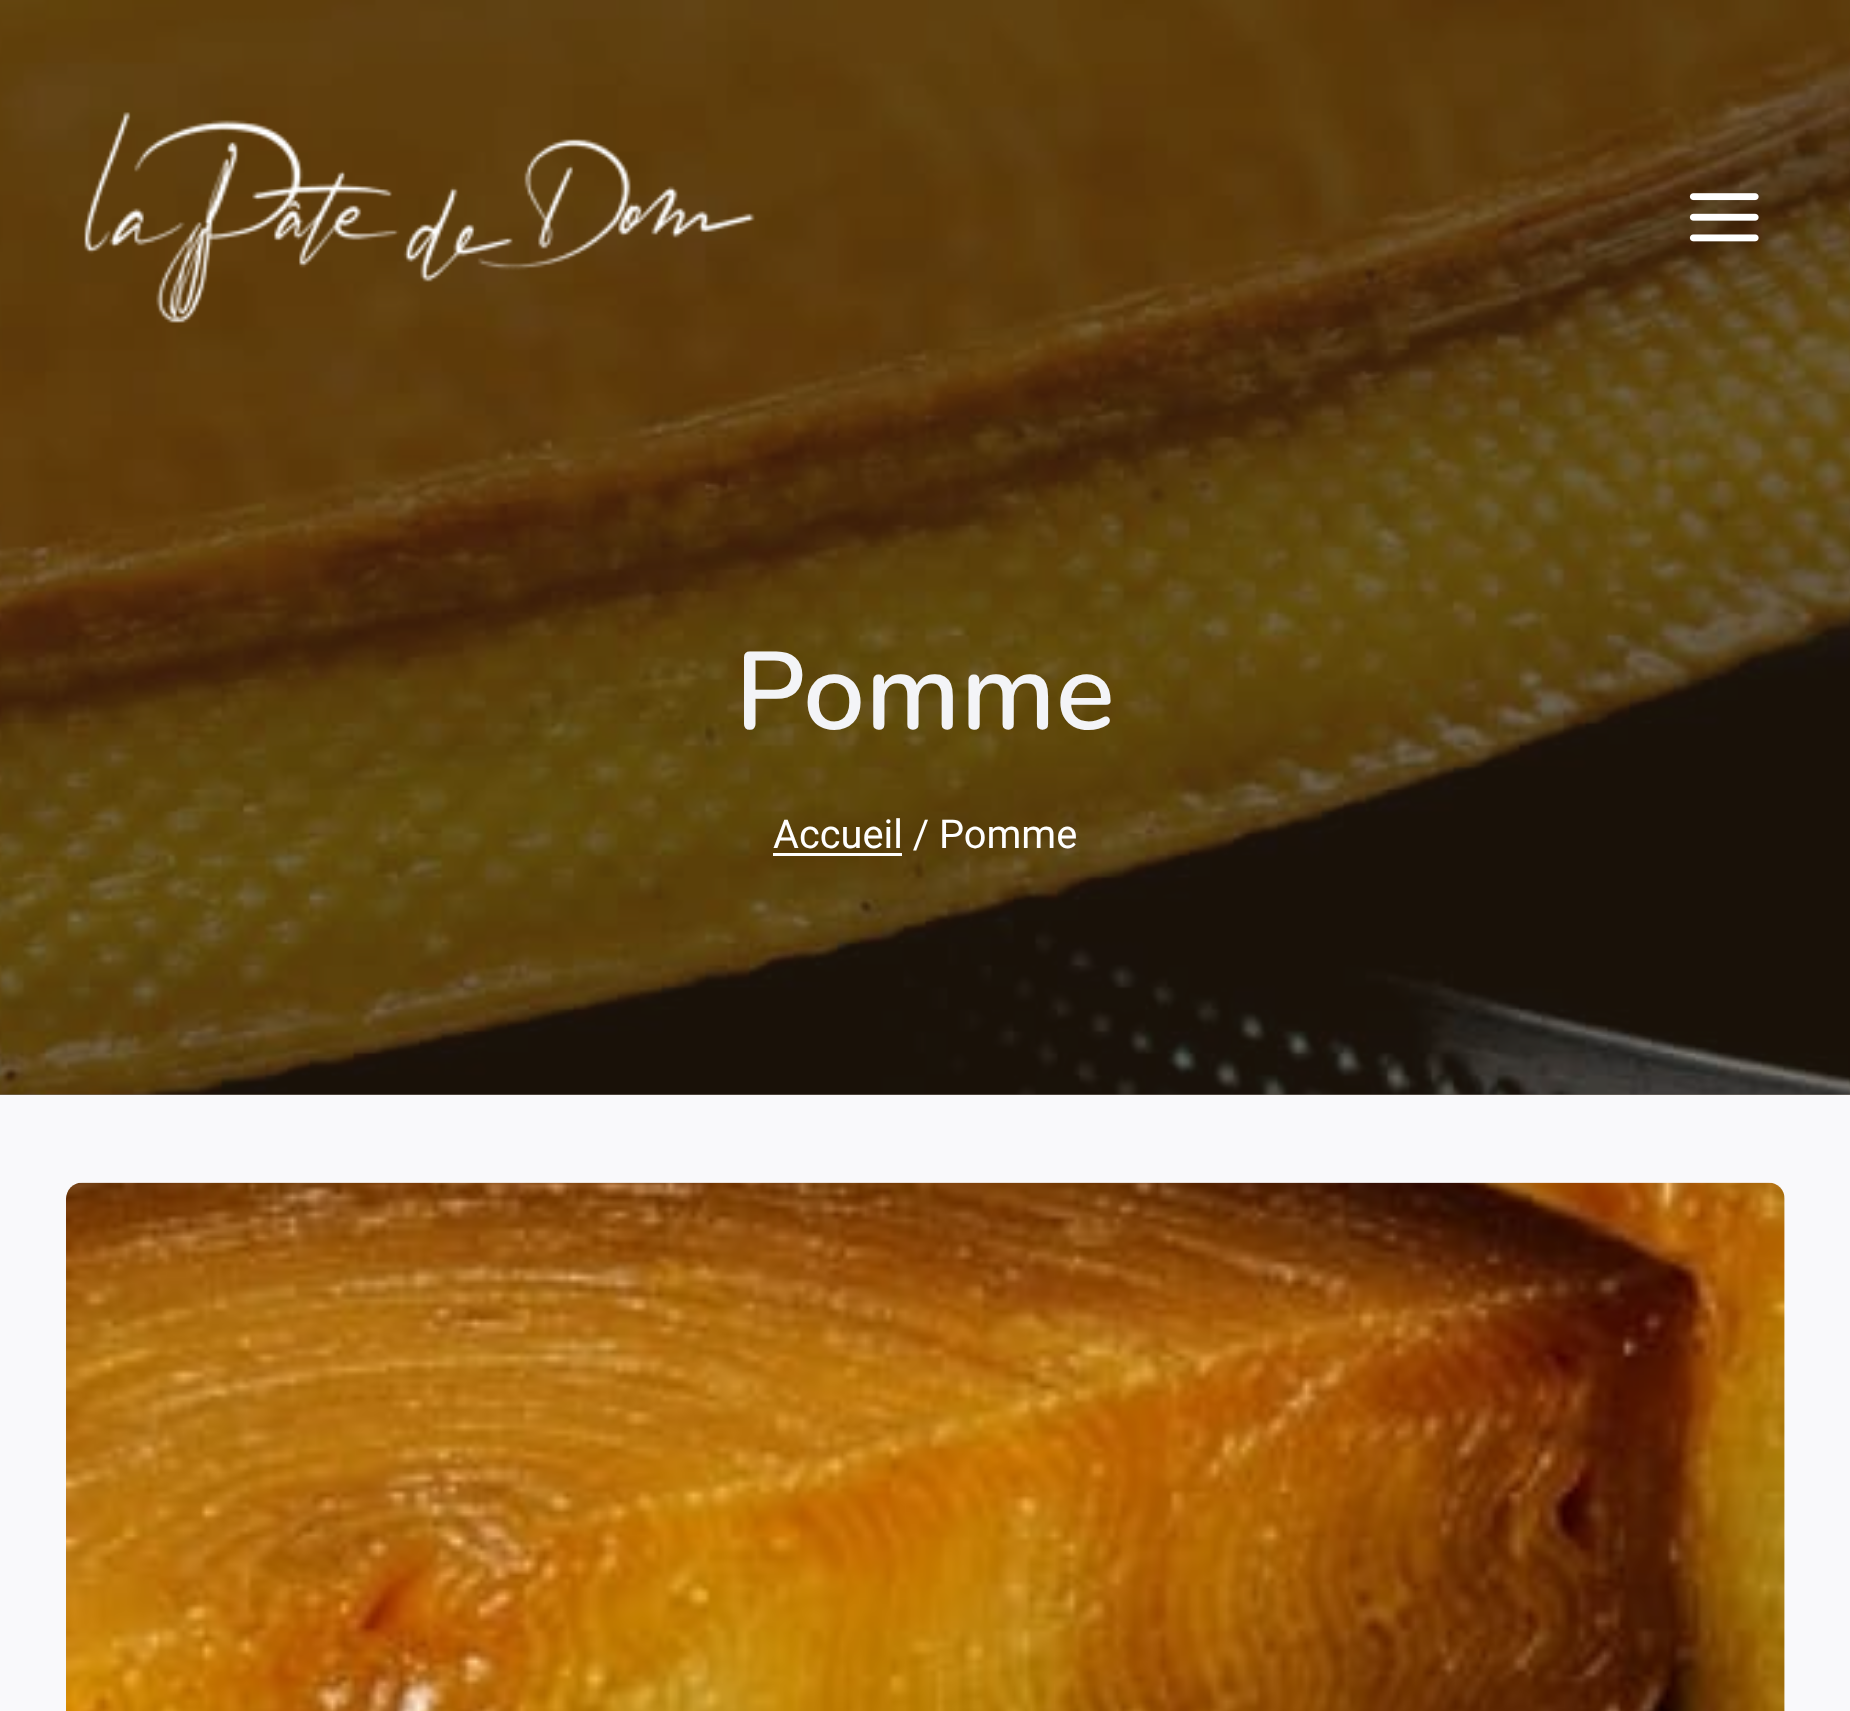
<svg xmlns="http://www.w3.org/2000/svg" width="1850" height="1711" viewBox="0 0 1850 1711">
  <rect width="100%" height="100%" fill="rgb(249,249,251)"/>
  <rect x="0" y="1094" width="1850" height="1" fill="rgb(122,114,107)"/>
  <image x="0" y="0" width="1850" height="1095" href="pic3.png"/>
  <image x="84" y="112" width="671" height="211" href="pic1.png"/>
  <image x="1689" y="193" width="70" height="49" href="pic2.png"/>
  <text x="735" y="729" font-family="Nunito" font-size="110" font-weight="600" fill="rgb(243,244,247)">Pomme</text>
  <text x="773" y="848" font-family="Roboto" font-size="39.75" fill="rgb(255,255,255)">Accueil / Pomme</text>
  <rect x="773" y="853" width="129" height="3" fill="rgb(255,255,255)"/>
  <rect x="66" y="1183" width="1719" height="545" rx="17" fill="rgb(255,255,255)"/>
  <image x="66" y="1182" width="1719" height="529" href="pic4.png"/>
</svg>
